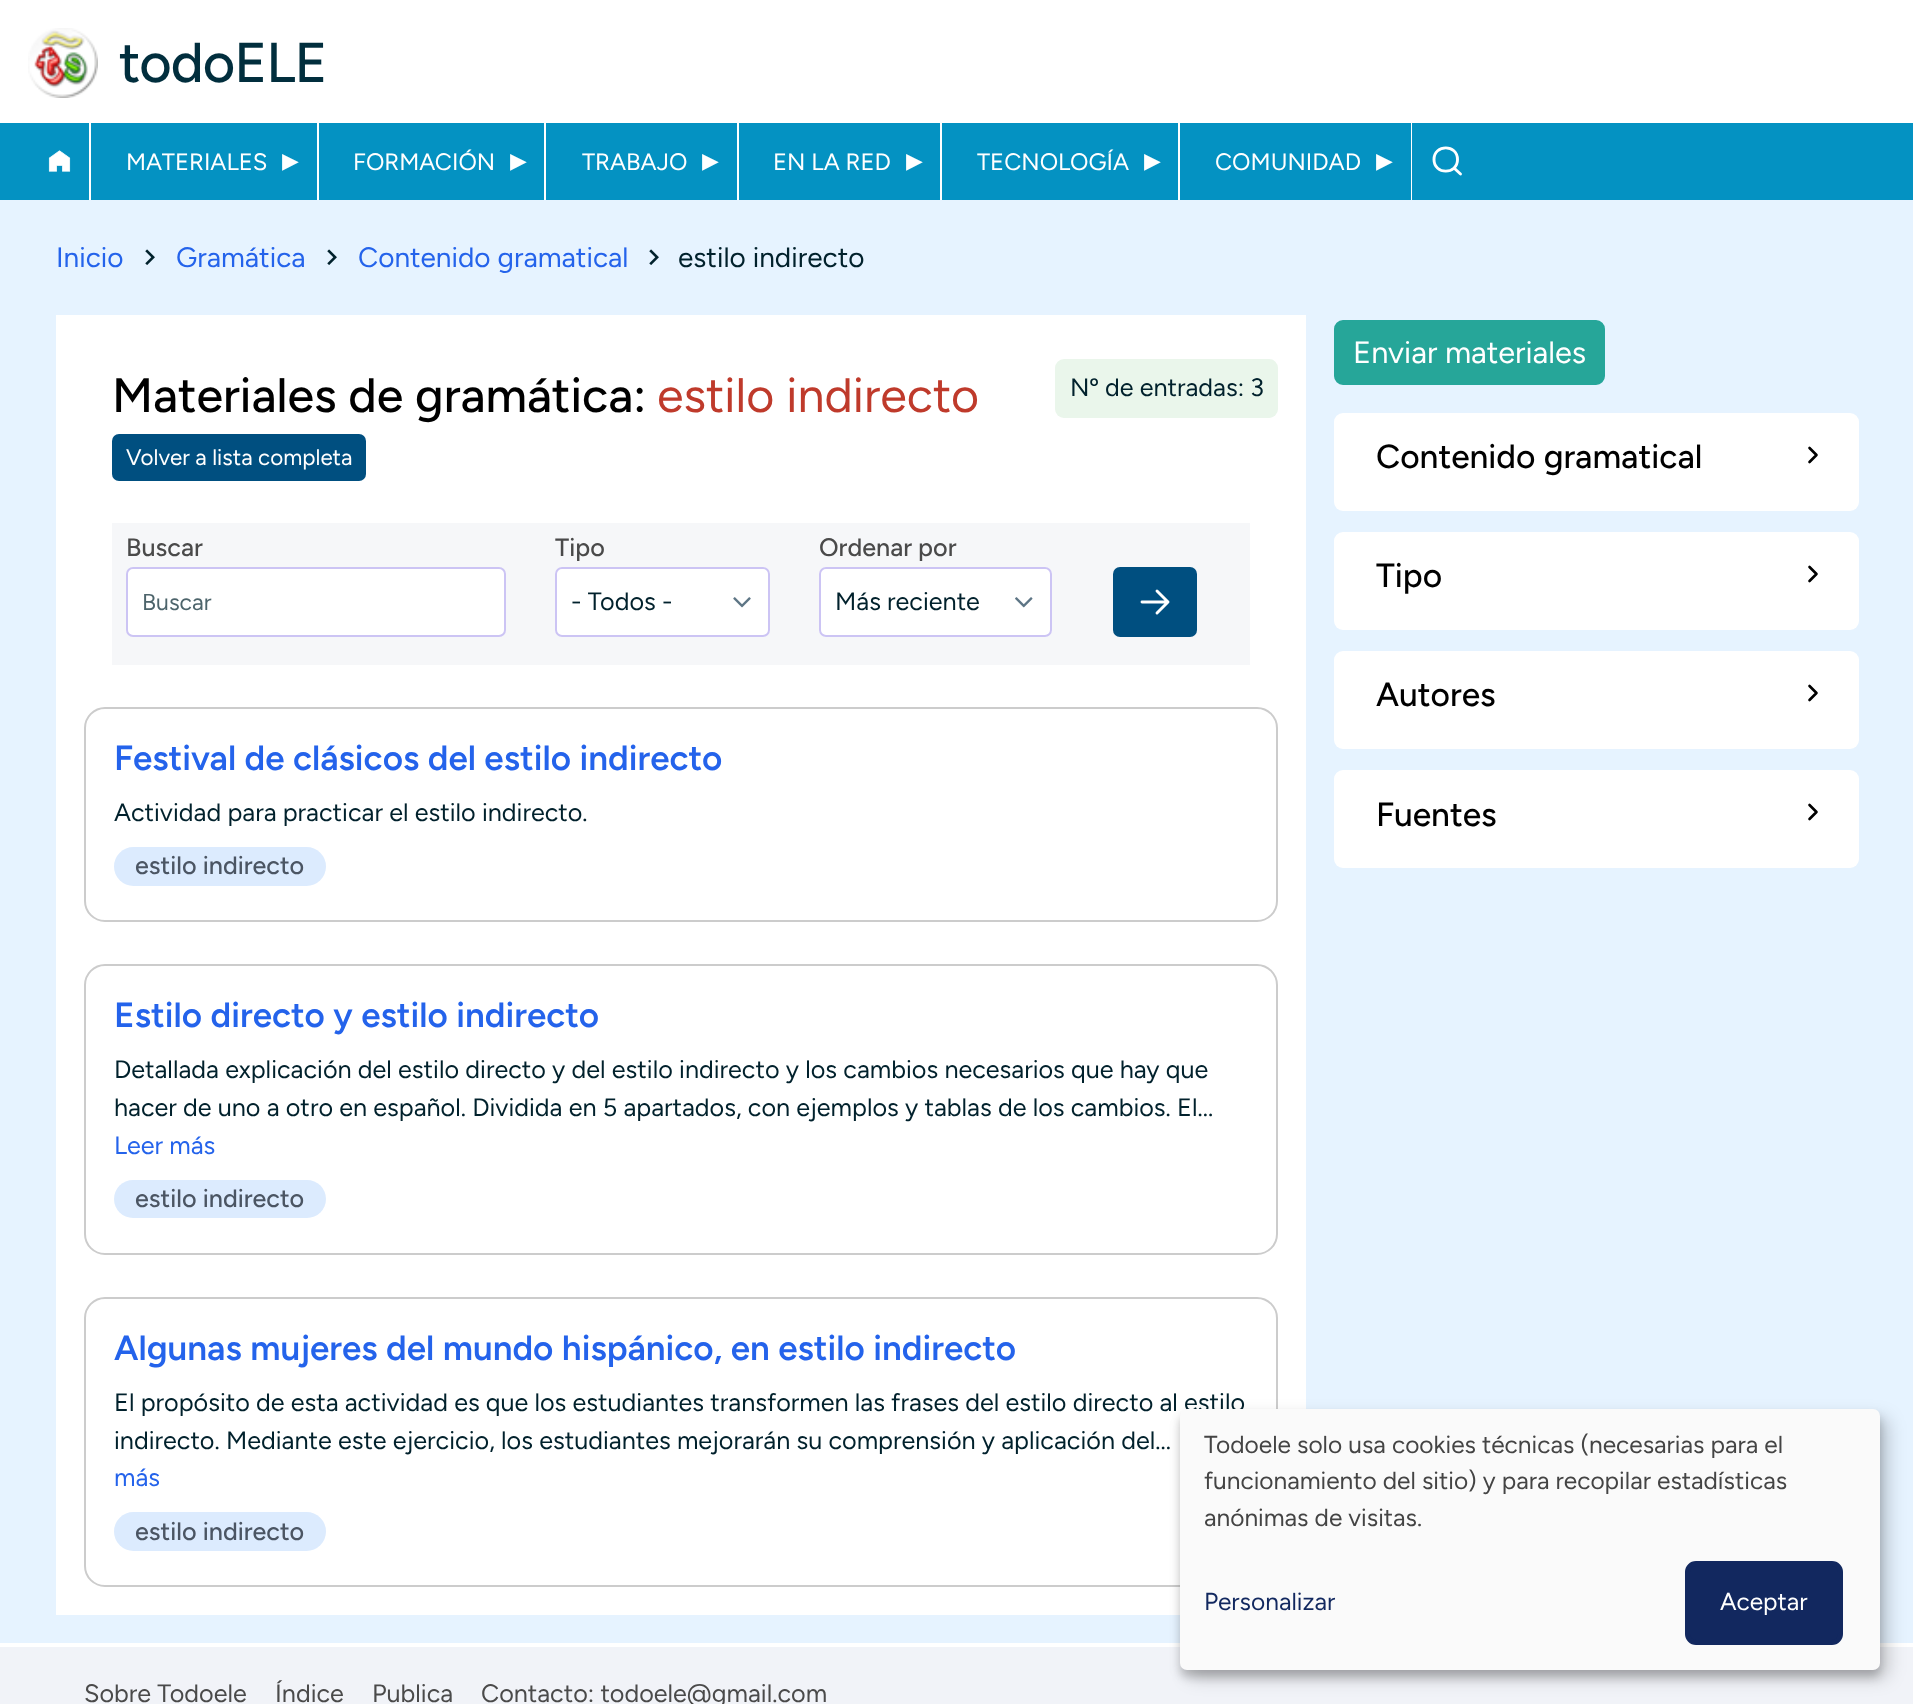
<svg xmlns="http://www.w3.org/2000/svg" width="1913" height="1704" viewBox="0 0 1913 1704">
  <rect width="100%" height="100%" fill="rgb(230,243,255)"/>
  <rect x="0" y="0" width="1913" height="123" fill="rgb(255,255,255)"/>
  <image x="28" y="28" width="70" height="70" href="pic1.png"/>
  <text x="119" y="82" font-family="Figtree" font-size="56" font-weight="500" letter-spacing="-1" fill="rgb(1,46,61)">todoELE</text>
  <rect x="0" y="123" width="1913" height="77" fill="rgb(4,146,194)"/>
  <rect x="89" y="123" width="2" height="77" fill="rgb(255,255,255)"/>
  <image x="48" y="150" width="23" height="22" href="pic2.png"/>
  <rect x="317" y="123" width="2" height="77" fill="rgb(255,255,255)"/>
  <text x="126" y="170" font-family="Figtree" font-size="23.75" fill="rgb(255,255,255)">MATERIALES</text>
  <text x="282" y="171" font-family="DejaVu Sans" font-size="33.5" fill="rgb(255,255,255)">▸</text>
  <rect x="544" y="123" width="2" height="77" fill="rgb(255,255,255)"/>
  <text x="353" y="170" font-family="Figtree" font-size="23.75" fill="rgb(255,255,255)">FORMACIÓN</text>
  <text x="510" y="171" font-family="DejaVu Sans" font-size="33.5" fill="rgb(255,255,255)">▸</text>
  <rect x="737" y="123" width="2" height="77" fill="rgb(255,255,255)"/>
  <text x="582" y="170" font-family="Figtree" font-size="23.75" fill="rgb(255,255,255)">TRABAJO</text>
  <text x="702" y="171" font-family="DejaVu Sans" font-size="33.5" fill="rgb(255,255,255)">▸</text>
  <rect x="940" y="123" width="2" height="77" fill="rgb(255,255,255)"/>
  <text x="773" y="170" font-family="Figtree" font-size="23.75" fill="rgb(255,255,255)">EN LA RED</text>
  <text x="906" y="171" font-family="DejaVu Sans" font-size="33.5" fill="rgb(255,255,255)">▸</text>
  <rect x="1178" y="123" width="2" height="77" fill="rgb(255,255,255)"/>
  <text x="977" y="170" font-family="Figtree" font-size="23.75" fill="rgb(255,255,255)">TECNOLOGÍA</text>
  <text x="1144" y="171" font-family="DejaVu Sans" font-size="33.5" fill="rgb(255,255,255)">▸</text>
  <rect x="1411" y="123" width="1" height="77" fill="rgb(255,255,255)"/>
  <text x="1215" y="170" font-family="Figtree" font-size="23.75" fill="rgb(255,255,255)">COMUNIDAD</text>
  <text x="1376" y="171" font-family="DejaVu Sans" font-size="33.5" fill="rgb(255,255,255)">▸</text>
  <path d="M1454 168L1460.5 174M1457.5 159.5C1457.5 175 1434 175 1434 159.5C1434 144 1457.5 144 1457.5 159.5Z" fill="none" stroke="rgb(255,255,255)" stroke-width="2.9" stroke-linecap="round" stroke-linejoin="round"/>
  <text x="56" y="267" font-family="Figtree" font-size="28" fill="rgb(36,99,235)">Inicio</text>
  <image x="145" y="249" width="10" height="16" href="pic3.png"/>
  <text x="176" y="267" font-family="Figtree" font-size="28" fill="rgb(36,99,235)">Gramática</text>
  <image x="327" y="249" width="10" height="16" href="pic3.png"/>
  <text x="358" y="267" font-family="Figtree" font-size="28" fill="rgb(36,99,235)">Contenido gramatical</text>
  <image x="649" y="249" width="10" height="16" href="pic3.png"/>
  <text x="678" y="267" font-family="Figtree" font-size="28" fill="rgb(1,33,44)">estilo indirecto</text>
  <rect x="0" y="1643" width="1913" height="4" fill="rgb(255,255,255)"/>
  <rect x="56" y="315" width="1250" height="1300" fill="rgb(255,255,255)"/>
  <text x="112" y="412" font-family="Figtree" font-size="48.4" font-weight="500" fill="rgb(0,0,0)">Materiales de gramática:</text>
  <text x="657" y="412" font-family="Figtree" font-size="48.4" fill="rgb(191,58,43)">estilo indirecto</text>
  <rect x="1055" y="359" width="223" height="59" rx="9" fill="rgb(234,246,235)"/>
  <text x="1070" y="396" font-family="Figtree" font-size="25.2" fill="rgb(1,33,44)">Nº de entradas: 3</text>
  <rect x="112" y="434" width="254" height="47" rx="7" fill="rgb(0,79,128)"/>
  <text x="126" y="465" font-family="Figtree" font-size="22.4" fill="rgb(255,255,255)">Volver a lista completa</text>
  <rect x="112" y="523" width="1138" height="142" fill="rgb(246,247,249)"/>
  <text x="126" y="556" font-family="Figtree" font-size="25.2" font-weight="500" fill="rgb(74,74,74)">Buscar</text>
  <rect x="127" y="568" width="378" height="68" rx="6" fill="rgb(255,255,255)" stroke="rgb(204,196,244)" stroke-width="2"/>
  <text x="142" y="610" font-family="Figtree" font-size="23" fill="rgb(77,100,107)">Buscar</text>
  <text x="555" y="556" font-family="Figtree" font-size="25.2" font-weight="500" fill="rgb(74,74,74)">Tipo</text>
  <rect x="555" y="567" width="215" height="70" rx="7" fill="rgb(255,255,255)"/>
  <image x="733" y="597" width="18" height="11" href="pic4.png"/>
  <rect x="556" y="568" width="213" height="68" rx="6" fill="none" stroke="rgb(204,196,244)" stroke-width="2"/>
  <text x="571" y="610" font-family="Figtree" font-size="25.2" fill="rgb(1,33,44)">- Todos -</text>
  <text x="819" y="556" font-family="Figtree" font-size="25.2" font-weight="500" fill="rgb(74,74,74)">Ordenar por</text>
  <rect x="819" y="567" width="233" height="70" rx="7" fill="rgb(255,255,255)"/>
  <image x="1015" y="597" width="18" height="11" href="pic5.png"/>
  <rect x="820" y="568" width="231" height="68" rx="6" fill="none" stroke="rgb(204,196,244)" stroke-width="2"/>
  <text x="835" y="610" font-family="Figtree" font-size="25.2" fill="rgb(1,33,44)">Más reciente</text>
  <rect x="1113" y="567" width="84" height="70" rx="7" fill="rgb(0,79,128)"/>
  <path d="M1157 591L1168 602M1168 602L1157 613M1168 602H1142" fill="none" stroke="rgb(255,255,255)" stroke-width="2.9" stroke-linecap="round" stroke-linejoin="round"/>
  <rect x="85" y="708" width="1192" height="213" rx="20" fill="none" stroke="rgb(204,204,204)" stroke-width="2"/>
  <text x="114" y="770" font-family="Figtree" font-size="35" font-weight="600" fill="rgb(36,99,235)">Festival de clásicos del estilo indirecto</text>
  <text x="114" y="821" font-family="Figtree" font-size="25.2" fill="rgb(1,33,44)">Actividad para practicar el estilo indirecto.</text>
  <rect x="114" y="847" width="212" height="39" rx="19.5" fill="rgb(220,235,254)"/>
  <text x="135" y="874" font-family="Figtree" font-size="25.2" font-weight="500" fill="rgb(75,85,99)">estilo indirecto</text>
  <rect x="85" y="965" width="1192" height="289" rx="20" fill="none" stroke="rgb(204,204,204)" stroke-width="2"/>
  <text x="114" y="1027" font-family="Figtree" font-size="35" font-weight="600" fill="rgb(36,99,235)">Estilo directo y estilo indirecto</text>
  <g font-family="Figtree" font-size="25.2" fill="rgb(1,33,44)">
    <text>
      <tspan x="114" y="1078">Detallada explicación del estilo directo y del estilo indirecto y los cambios necesarios que hay que</tspan>
      <tspan x="114" y="1116">hacer de uno a otro en español. Dividida en 5 apartados, con ejemplos y tablas de los cambios. El...</tspan>
    </text>
  </g>
  <text x="114" y="1154" font-family="Figtree" font-size="25.2" fill="rgb(36,99,235)">Leer más</text>
  <rect x="114" y="1180" width="212" height="38" rx="19" fill="rgb(220,235,254)"/>
  <text x="135" y="1207" font-family="Figtree" font-size="25.2" font-weight="500" fill="rgb(75,85,99)">estilo indirecto</text>
  <rect x="85" y="1298" width="1192" height="288" rx="20" fill="none" stroke="rgb(204,204,204)" stroke-width="2"/>
  <text x="114" y="1360" font-family="Figtree" font-size="35" font-weight="600" fill="rgb(36,99,235)">Algunas mujeres del mundo hispánico, en estilo indirecto</text>
  <g font-family="Figtree" font-size="25.2" fill="rgb(1,33,44)">
    <text>
      <tspan x="114" y="1411">El propósito de esta actividad es que los estudiantes transformen las frases del estilo directo al estilo</tspan>
      <tspan x="114" y="1449">indirecto. Mediante este ejercicio, los estudiantes mejorarán su comprensión y aplicación del...</tspan>
    </text>
  </g>
  <text x="114" y="1486" font-family="Figtree" font-size="25.2" fill="rgb(36,99,235)">más</text>
  <rect x="114" y="1512" width="212" height="39" rx="19.5" fill="rgb(220,235,254)"/>
  <text x="135" y="1540" font-family="Figtree" font-size="25.2" font-weight="500" fill="rgb(75,85,99)">estilo indirecto</text>
  <rect x="1335" y="321" width="269" height="63" rx="8" fill="rgb(38,166,153)" stroke="rgb(38,166,154)" stroke-width="2"/>
  <text x="1353" y="363" font-family="Figtree" font-size="30.75" fill="rgb(255,255,255)">Enviar materiales</text>
  <rect x="1334" y="413" width="525" height="98" rx="9" fill="rgb(255,255,255)"/>
  <path d="M1809.5 448L1816.5 455L1809.5 462" fill="none" stroke="rgb(0,0,0)" stroke-width="2.6" stroke-linecap="round" stroke-linejoin="round"/>
  <text x="1376" y="468" font-family="Figtree" font-size="33.5" font-weight="500" fill="rgb(0,0,0)">Contenido gramatical</text>
  <rect x="1334" y="532" width="525" height="98" rx="9" fill="rgb(255,255,255)"/>
  <path d="M1809.5 567L1816.5 574L1809.5 581" fill="none" stroke="rgb(0,0,0)" stroke-width="2.6" stroke-linecap="round" stroke-linejoin="round"/>
  <text x="1376" y="587" font-family="Figtree" font-size="33.5" font-weight="500" fill="rgb(0,0,0)">Tipo</text>
  <rect x="1334" y="651" width="525" height="98" rx="9" fill="rgb(255,255,255)"/>
  <path d="M1809.5 686L1816.5 693L1809.5 700" fill="none" stroke="rgb(0,0,0)" stroke-width="2.6" stroke-linecap="round" stroke-linejoin="round"/>
  <text x="1376" y="706" font-family="Figtree" font-size="33.5" font-weight="500" fill="rgb(0,0,0)">Autores</text>
  <rect x="1334" y="770" width="525" height="98" rx="9" fill="rgb(255,255,255)"/>
  <path d="M1809.5 805L1816.5 812L1809.5 819" fill="none" stroke="rgb(0,0,0)" stroke-width="2.6" stroke-linecap="round" stroke-linejoin="round"/>
  <text x="1376" y="826" font-family="Figtree" font-size="33.5" font-weight="500" fill="rgb(0,0,0)">Fuentes</text>
  <rect x="0" y="1647" width="1913" height="57" fill="rgb(241,243,248)"/>
  <g font-family="Figtree" font-size="25.2" fill="rgb(74,74,74)">
    <text x="84" y="1702">Sobre Todoele</text>
    <text x="275" y="1702">Índice</text>
    <text x="372" y="1702">Publica</text>
    <text x="481" y="1702">Contacto: todoele@gmail.com</text>
  </g>
  <rect x="1188" y="1418" width="700" height="260" rx="7" fill="rgba(0,0,0,0.19)" filter="blur(9px)"/>
  <rect x="1180" y="1416" width="700" height="261" rx="7" fill="rgba(0,0,0,0.2)" filter="blur(5px)"/>
  <rect x="1180" y="1409" width="700" height="261" rx="7" fill="rgb(250,250,250)"/>
  <g font-family="Figtree" font-size="24.5" fill="rgb(68,68,68)">
    <text>
      <tspan x="1204" y="1453">Todoele solo usa cookies técnicas (necesarias para el</tspan>
      <tspan x="1204" y="1489">funcionamiento del sitio) y para recopilar estadísticas</tspan>
      <tspan x="1204" y="1526">anónimas de visitas.</tspan>
    </text>
  </g>
  <text x="1204" y="1610" font-family="Figtree" font-size="24.5" fill="rgb(18,40,95)">Personalizar</text>
  <rect x="1687.5" y="1563.5" width="153" height="79" rx="8.5" fill="rgb(18,40,95)" stroke="rgb(18,40,95)" stroke-width="5"/>
  <text x="1720" y="1610" font-family="Figtree" font-size="24.5" fill="rgb(255,255,255)">Aceptar</text>
</svg>
